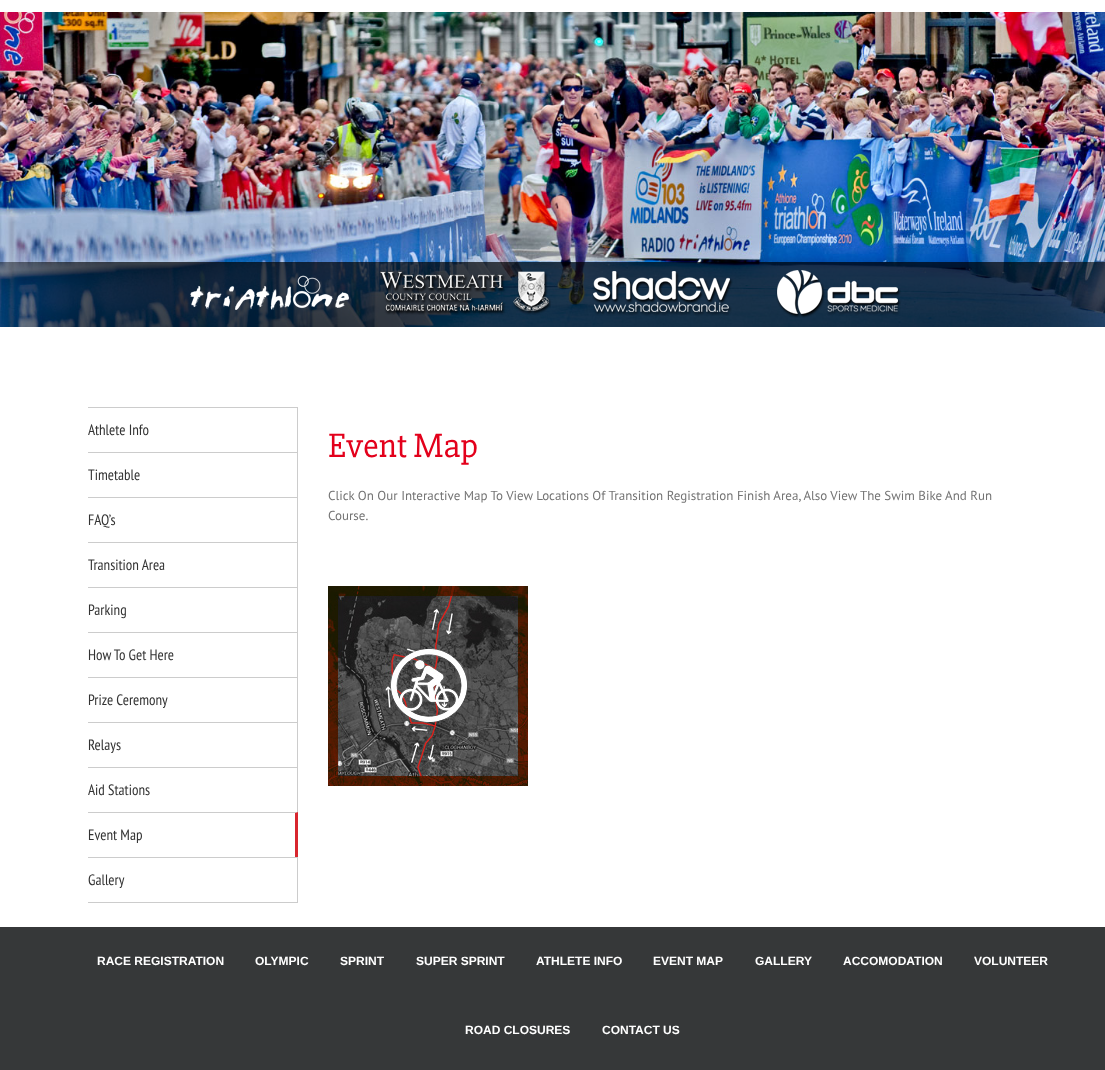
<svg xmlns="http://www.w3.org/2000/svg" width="1105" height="1070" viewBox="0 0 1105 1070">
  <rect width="100%" height="100%" fill="rgb(255,255,255)"/>
  <image x="0" y="12" width="1105" height="315" href="pic1.png"/>
  <image x="0" y="262" width="1105" height="65" href="pic2.png"/>
  <image x="190" y="275" width="159" height="35" href="pic3.png"/>
  <image x="379" y="271" width="172" height="44" href="pic4.png"/>
  <image x="592" y="271" width="141" height="45" href="pic5.png"/>
  <image x="776" y="270" width="125" height="48" href="pic6.png"/>
  <rect x="88" y="902" width="210" height="1" fill="rgb(204,204,204)"/>
  <rect x="88" y="407" width="210" height="1" fill="rgb(204,204,204)"/>
  <rect x="297" y="407" width="1" height="45" fill="rgb(204,204,204)"/>
  <text x="88" y="435" font-family="PT Sans Narrow" font-size="15" fill="rgb(51,51,51)">Athlete Info</text>
  <rect x="88" y="452" width="210" height="1" fill="rgb(204,204,204)"/>
  <rect x="297" y="452" width="1" height="45" fill="rgb(204,204,204)"/>
  <text x="88" y="480" font-family="PT Sans Narrow" font-size="15" fill="rgb(51,51,51)">Timetable</text>
  <rect x="88" y="497" width="210" height="1" fill="rgb(204,204,204)"/>
  <rect x="297" y="497" width="1" height="45" fill="rgb(204,204,204)"/>
  <text x="88" y="525" font-family="PT Sans Narrow" font-size="15" fill="rgb(51,51,51)">FAQ’s</text>
  <rect x="88" y="542" width="210" height="1" fill="rgb(204,204,204)"/>
  <rect x="297" y="542" width="1" height="45" fill="rgb(204,204,204)"/>
  <text x="88" y="570" font-family="PT Sans Narrow" font-size="15" fill="rgb(51,51,51)">Transition Area</text>
  <rect x="88" y="587" width="210" height="1" fill="rgb(204,204,204)"/>
  <rect x="297" y="587" width="1" height="45" fill="rgb(204,204,204)"/>
  <text x="88" y="615" font-family="PT Sans Narrow" font-size="15" fill="rgb(51,51,51)">Parking</text>
  <rect x="88" y="632" width="210" height="1" fill="rgb(204,204,204)"/>
  <rect x="297" y="632" width="1" height="45" fill="rgb(204,204,204)"/>
  <text x="88" y="660" font-family="PT Sans Narrow" font-size="15" fill="rgb(51,51,51)">How To Get Here</text>
  <rect x="88" y="677" width="210" height="1" fill="rgb(204,204,204)"/>
  <rect x="297" y="677" width="1" height="45" fill="rgb(204,204,204)"/>
  <text x="88" y="705" font-family="PT Sans Narrow" font-size="15" fill="rgb(51,51,51)">Prize Ceremony</text>
  <rect x="88" y="722" width="210" height="1" fill="rgb(204,204,204)"/>
  <rect x="297" y="722" width="1" height="45" fill="rgb(204,204,204)"/>
  <text x="88" y="750" font-family="PT Sans Narrow" font-size="15" fill="rgb(51,51,51)">Relays</text>
  <rect x="88" y="767" width="210" height="1" fill="rgb(204,204,204)"/>
  <rect x="297" y="767" width="1" height="45" fill="rgb(204,204,204)"/>
  <text x="88" y="795" font-family="PT Sans Narrow" font-size="15" fill="rgb(51,51,51)">Aid Stations</text>
  <path d="M88 812H298L295 813H88Z" fill="rgb(204,204,204)"/>
  <path d="M298 812V857H295V813Z" fill="rgb(216,38,46)"/>
  <text x="88" y="840" font-family="PT Sans Narrow" font-size="15" fill="rgb(51,51,51)">Event Map</text>
  <rect x="88" y="857" width="210" height="1" fill="rgb(204,204,204)"/>
  <rect x="297" y="857" width="1" height="45" fill="rgb(204,204,204)"/>
  <text x="88" y="885" font-family="PT Sans Narrow" font-size="15" fill="rgb(51,51,51)">Gallery</text>
  <text x="328" y="457" font-family="'Slabo 27px'" font-size="35" fill="rgb(227,0,27)">Event Map</text>
  <g font-family="PT Sans" font-size="13" fill="rgb(116,116,116)">
    <text>
      <tspan x="328" y="500">Click On Our Interactive Map To View Locations Of Transition Registration Finish Area, Also View The Swim Bike And Run</tspan>
      <tspan x="328" y="520">Course.</tspan>
    </text>
  </g>
  <image x="328" y="586" width="200" height="200" href="pic7.png"/>
  <rect x="0" y="927" width="1105" height="143" fill="rgb(54,56,57)"/>
  <g font-family="Liberation Sans" font-size="12" font-weight="bold" fill="rgb(255,255,255)">
    <text x="97" y="965">RACE REGISTRATION</text>
    <text x="255" y="965">OLYMPIC</text>
    <text x="340" y="965">SPRINT</text>
    <text x="416" y="965">SUPER SPRINT</text>
    <text x="536" y="965">ATHLETE INFO</text>
    <text x="653" y="965">EVENT MAP</text>
    <text x="755" y="965">GALLERY</text>
    <text x="843" y="965">ACCOMODATION</text>
    <text x="974" y="965">VOLUNTEER</text>
    <text x="465" y="1034">ROAD CLOSURES</text>
    <text x="602" y="1034">CONTACT US</text>
  </g>
</svg>
